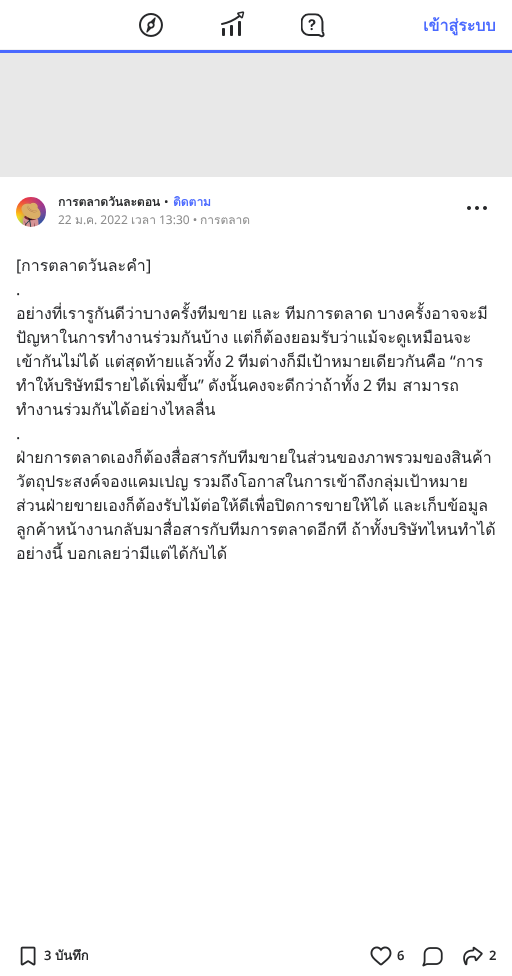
<svg xmlns="http://www.w3.org/2000/svg" width="512" height="976" viewBox="0 0 512 976">
  <rect width="100%" height="100%" fill="rgb(242,242,242)"/>
  <rect x="0" y="0" width="512" height="49" fill="rgb(255,255,255)"/>
  <image x="139" y="13" width="24" height="24" href="pic1.png"/>
  <image x="221" y="11" width="24" height="25" href="pic2.png"/>
  <image x="301" y="13" width="24" height="25" href="pic3.png"/>
  <text x="423" y="31" font-family="Loma" font-size="16" font-weight="bold" fill="rgb(74,105,255)">เข้าสู่ระบบ</text>
  <rect x="0" y="50" width="512" height="3" fill="rgb(74,105,255)"/>
  <rect x="0" y="53" width="512" height="124" fill="rgb(232,232,232)"/>
  <rect x="0" y="177" width="512" height="799" fill="rgb(255,255,255)"/>
  <image x="16" y="197" width="30" height="30" href="pic4.png"/>
  <text x="58" y="206" font-family="Loma" font-size="12" font-weight="bold" fill="rgb(39,40,42)">การตลาดวันละตอน</text>
  <text x="164" y="206" font-family="Noto Sans" font-size="12" fill="rgb(39,40,42)">•</text>
  <text x="173" y="206" font-family="Loma" font-size="12" font-weight="bold" fill="rgb(74,105,255)">ติดตาม</text>
  <text x="58" y="224" font-family="Noto Sans" font-size="12" fill="rgb(139,139,139)">22</text>
  <text x="75" y="224" font-family="Loma" font-size="12" fill="rgb(139,139,139)">ม</text>
  <text x="83" y="224" font-family="Noto Sans" font-size="12" fill="rgb(139,139,139)">.</text>
  <text x="86" y="224" font-family="Loma" font-size="12" fill="rgb(139,139,139)">ค</text>
  <text x="94" y="224" font-family="Noto Sans" font-size="12" fill="rgb(139,139,139)">. 2022</text>
  <text x="131" y="224" font-family="Loma" font-size="12" fill="rgb(139,139,139)">เวลา</text>
  <text x="159" y="224" font-family="Noto Sans" font-size="12" fill="rgb(139,139,139)">13:30 •</text>
  <text x="200" y="224" font-family="Loma" font-size="12" fill="rgb(139,139,139)">การตลาด</text>
  <image x="467" y="206" width="20" height="4" href="pic5.png"/>
  <text x="16" y="271" font-family="Noto Sans" font-size="16" fill="rgb(39,40,42)">[</text>
  <text x="21" y="271" font-family="Loma" font-size="16" fill="rgb(39,40,42)">การตลาดวันละคำ</text>
  <g font-family="Noto Sans" font-size="16" fill="rgb(39,40,42)">
    <text x="146" y="271">]</text>
    <text x="16" y="295">.</text>
  </g>
  <g font-family="Loma" font-size="16" fill="rgb(39,40,42)">
    <text>
      <tspan x="16" y="319" word-spacing="-1">อย่างที่เรารูกันดีว่าบางครั้งทีมขาย และ ทีมการตลาด บางครั้งอาจจะมี</tspan>
      <tspan x="16" y="343" word-spacing="-1">ปัญหาในการทำงานร่วมกันบ้าง แต่ก็ต้องยอมรับว่าแม้จะดูเหมือนจะ</tspan>
      <tspan x="16" y="367">เข้ากันไม่ได้ แต่สุดท้ายแล้วทั้ง</tspan>
    </text>
  </g>
  <text x="225" y="367" font-family="Noto Sans" font-size="16" fill="rgb(39,40,42)">2</text>
  <text x="238" y="367" font-family="Loma" font-size="16" fill="rgb(39,40,42)">ทีมต่างก็มีเป้าหมายเดียวกันคือ</text>
  <text x="450" y="367" font-family="Noto Sans" font-size="16" fill="rgb(39,40,42)">“</text>
  <g font-family="Loma" font-size="16" fill="rgb(39,40,42)">
    <text x="456" y="367">การ</text>
    <text x="16" y="391">ทำให้บริษัทมีรายได้เพิ่มขึ้น</text>
  </g>
  <text x="198" y="391" font-family="Noto Sans" font-size="16" fill="rgb(39,40,42)">”</text>
  <text x="208" y="391" font-family="Loma" font-size="16" fill="rgb(39,40,42)">ดังนั้นคงจะดีกว่าถ้าทั้ง</text>
  <text x="363" y="391" font-family="Noto Sans" font-size="16" fill="rgb(39,40,42)">2</text>
  <g font-family="Loma" font-size="16" fill="rgb(39,40,42)">
    <text x="376" y="391">ทีม สามารถ</text>
    <text x="16" y="415">ทำงานร่วมกันได้อย่างไหลลื่น</text>
  </g>
  <text x="16" y="439" font-family="Noto Sans" font-size="16" fill="rgb(39,40,42)">.</text>
  <g font-family="Loma" font-size="16" fill="rgb(39,40,42)">
    <text>
      <tspan x="16" y="463">ฝ่ายการตลาดเองก็ต้องสื่อสารกับทีมขายในส่วนของภาพรวมของสินค้า</tspan>
      <tspan x="16" y="487" word-spacing="-1">วัตถุประสงค์จองแคมเปญ รวมถึงโอกาสในการเข้าถึงกลุ่มเป้าหมาย</tspan>
      <tspan x="16" y="511" word-spacing="-1">ส่วนฝ่ายขายเองก็ต้องรับไม้ต่อให้ดีเพื่อปิดการขายให้ได้ และเก็บข้อมูล</tspan>
      <tspan x="16" y="535" word-spacing="-1">ลูกค้าหน้างานกลับมาสื่อสารกับทีมการตลาดอีกที ถ้าทั้งบริษัทไหนทำได้</tspan>
      <tspan x="16" y="559" word-spacing="-1">อย่างนี้ บอกเลยว่ามีแต่ได้กับได้</tspan>
    </text>
  </g>
  <image x="20" y="946" width="16" height="20" href="pic6.png"/>
  <text x="44" y="960" font-family="Noto Sans" font-size="13" font-weight="600" fill="rgb(39,40,42)">3</text>
  <text x="55" y="960" font-family="Loma" font-size="13" font-weight="bold" fill="rgb(39,40,42)">บันทึก</text>
  <image x="370" y="946" width="22" height="20" href="pic7.png"/>
  <text x="397" y="960" font-family="Noto Sans" font-size="13" font-weight="600" fill="rgb(39,40,42)">6</text>
  <image x="422" y="947" width="21" height="20" href="pic8.png"/>
  <image x="463" y="946" width="20" height="20" href="pic9.png"/>
  <text x="489" y="960" font-family="Noto Sans" font-size="13" font-weight="600" fill="rgb(39,40,42)">2</text>
</svg>
